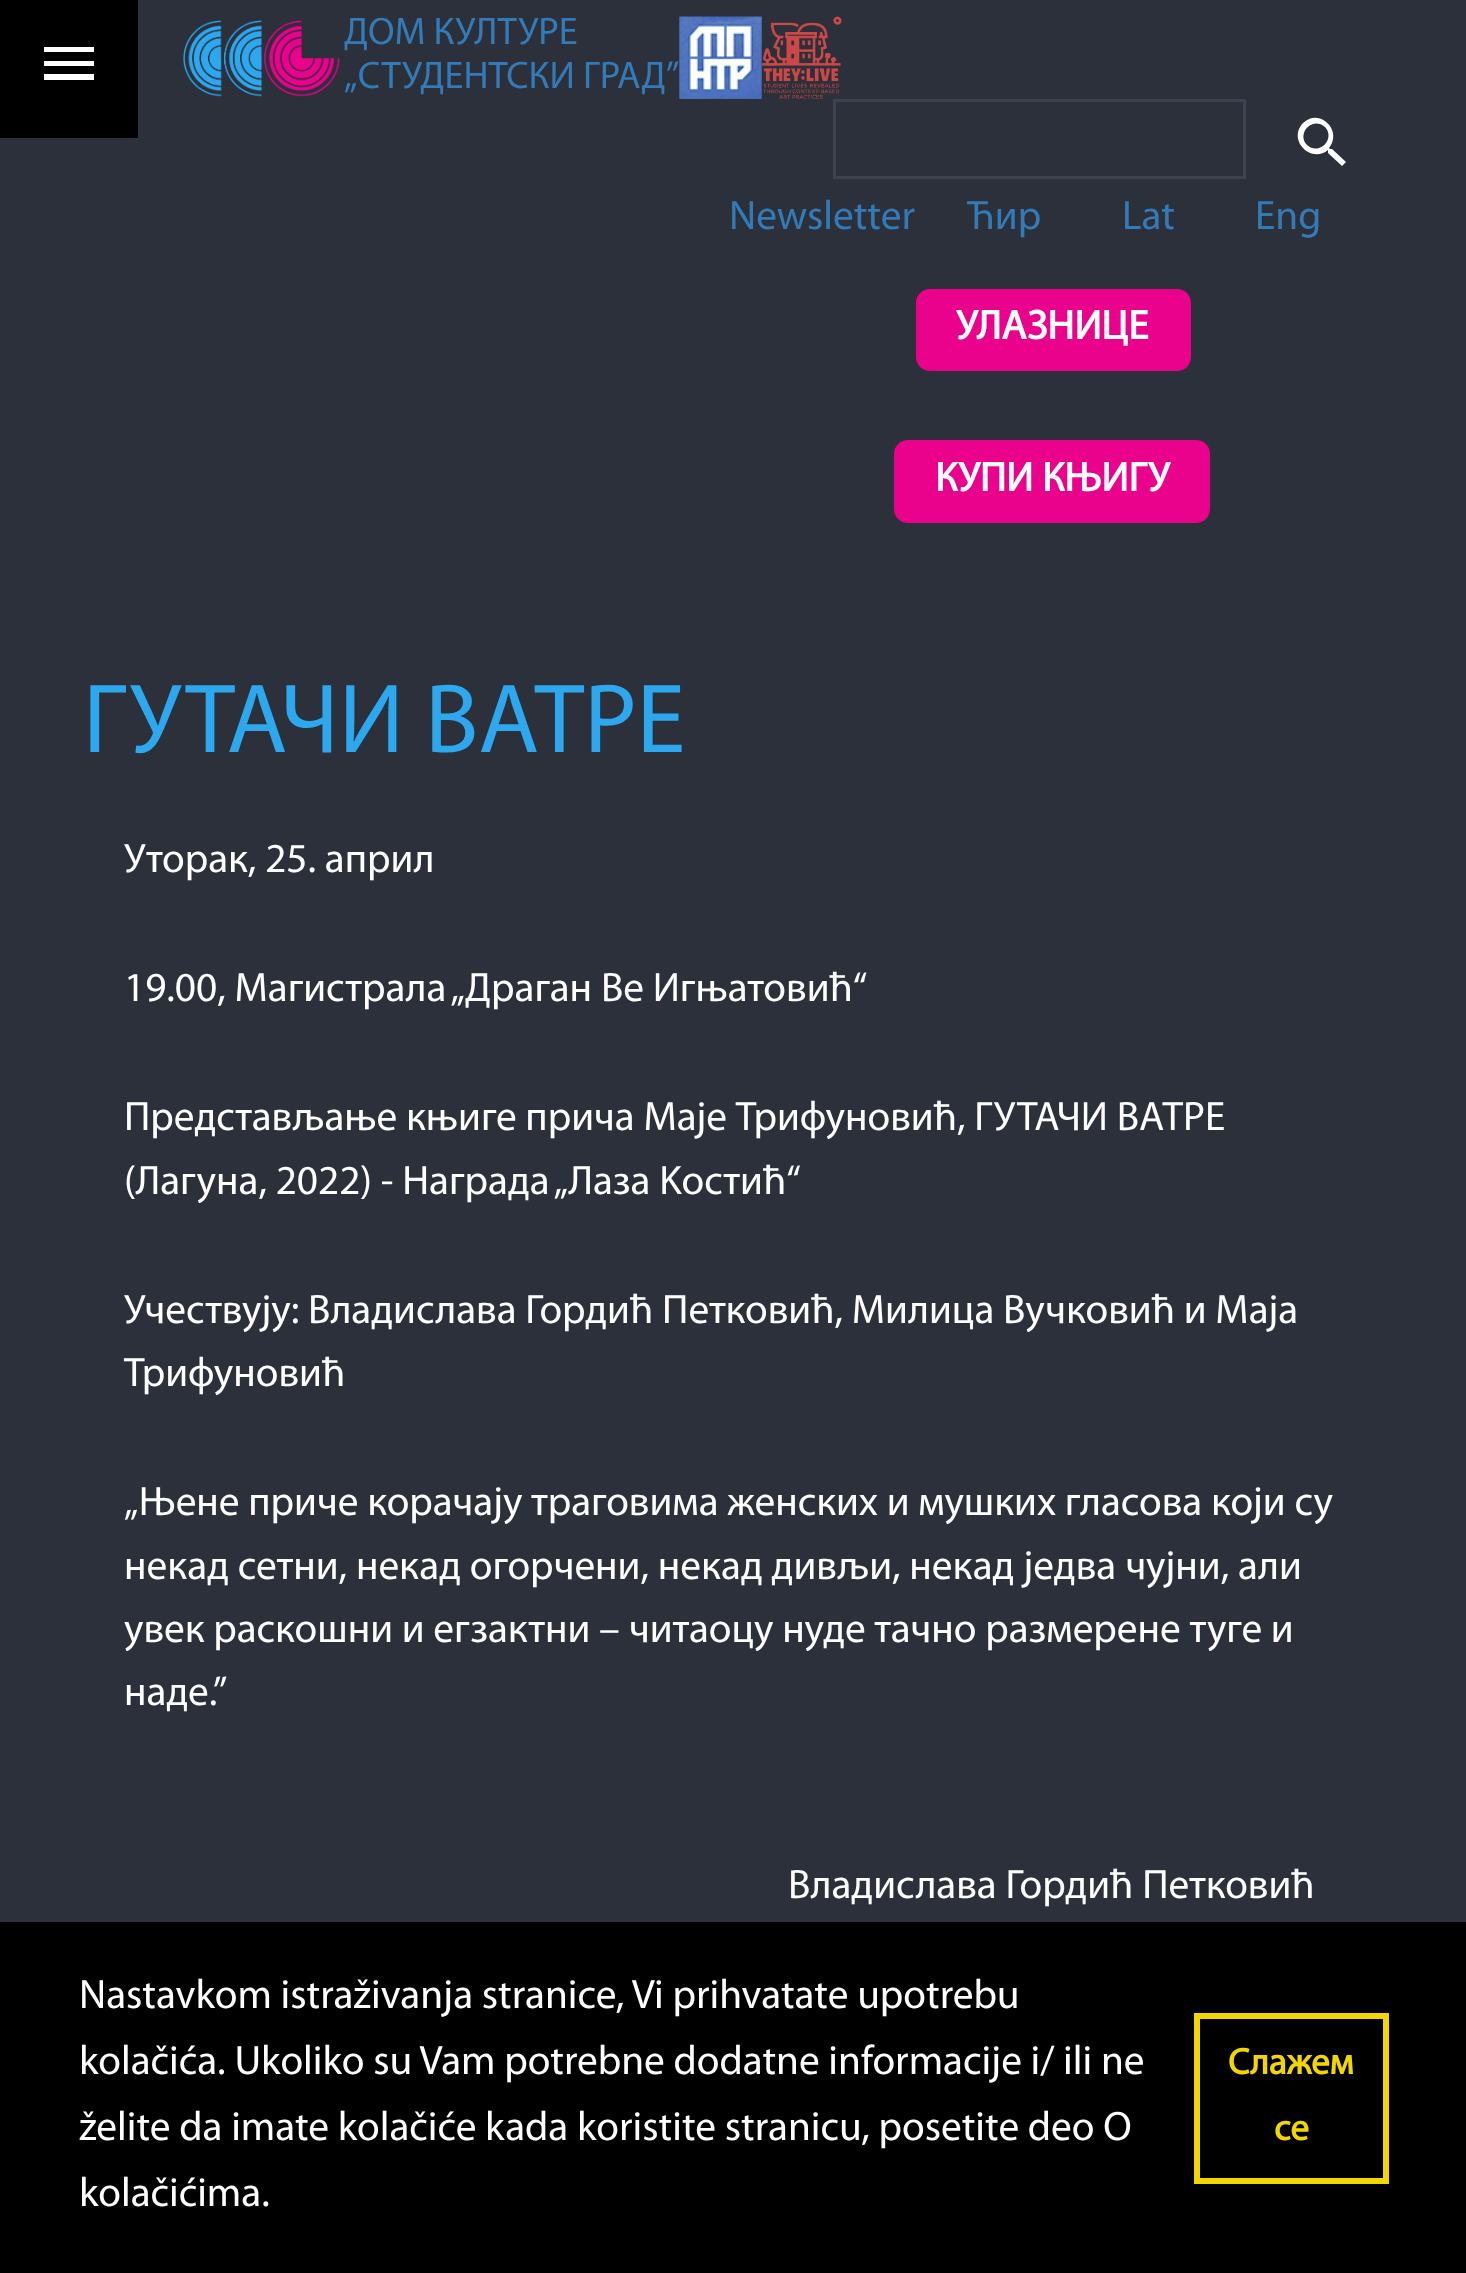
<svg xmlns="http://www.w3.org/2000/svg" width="1466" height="2273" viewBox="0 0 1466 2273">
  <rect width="100%" height="100%" fill="rgb(43,48,58)"/>
  <rect x="0" y="0" width="138" height="138" fill="rgb(0,0,0)"/>
  <path d="M44 47H94V52H44ZM44 66V61H94V66ZM44 80V74H94V80Z" fill="rgb(255,255,255)"/>
  <image x="183" y="20" width="157" height="77" href="pic1.png"/>
  <g font-family="Myriad" font-size="38.5" fill="rgb(51,122,183)">
    <text>
      <tspan x="344" y="44">ДОМ КУЛТУРЕ</tspan>
      <tspan x="344" y="88">„СТУДЕНТСКИ ГРАД”</tspan>
    </text>
  </g>
  <image x="679" y="16" width="83" height="83" href="pic2.png"/>
  <image x="761" y="16" width="81" height="83" href="pic3.png"/>
  <rect x="834.5" y="100.5" width="410" height="77" fill="none" stroke="rgb(60,66,79)" stroke-width="3"/>
  <path d="M1307 145C1319 156 1336 139 1325 127C1313 116 1296 133 1307 145ZM1332 149L1346 162L1342 166L1328 153V150C1311 164 1287 140 1303 123C1320 107 1343 131 1329 148L1330 149Z" fill="rgb(255,255,255)"/>
  <g font-family="Myriad" font-size="41.25" fill="rgb(51,122,183)">
    <text x="729" y="229">Newsletter</text>
    <text x="967" y="229">Ћир</text>
    <text x="1122" y="229">Lat</text>
    <text x="1255" y="229">Eng</text>
  </g>
  <rect x="916" y="289" width="275" height="82" rx="14" fill="rgb(234,1,140)"/>
  <text x="956" y="339" font-family="Myriad" font-size="41.25" font-weight="bold" fill="rgb(255,255,255)">УЛАЗНИЦЕ</text>
  <rect x="894" y="440" width="316" height="83" rx="14" fill="rgb(234,1,140)"/>
  <text x="935" y="491" font-family="Myriad" font-size="41.25" font-weight="bold" fill="rgb(255,255,255)">КУПИ КЊИГУ</text>
  <text x="83" y="752" font-family="Myriad" font-size="99" fill="rgb(45,167,238)">ГУТАЧИ ВАТРЕ</text>
  <g font-family="Myriad" font-size="41.25" fill="rgb(255,255,255)">
    <text x="124" y="872">Уторак, 25. април</text>
    <text x="124" y="1001">19.00, Магистрала „Драган Ве Игњатовић“</text>
    <text>
      <tspan x="124" y="1130">Представљање књиге прича Маје Трифуновић, ГУТАЧИ ВАТРЕ</tspan>
      <tspan x="124" y="1194">(Лагуна, 2022) - Награда „Лаза Kостић“</tspan>
    </text>
    <text>
      <tspan x="124" y="1323">Учествују: Владислава Гордић Петковић, Милица Вучковић и Маја</tspan>
      <tspan x="124" y="1386">Трифуновић</tspan>
    </text>
    <text>
      <tspan x="124" y="1515">„Њене приче корачају траговима женских и мушких гласова који су</tspan>
      <tspan x="124" y="1579">некад сетни, некад огорчени, некад дивљи, некад једва чујни, али</tspan>
      <tspan x="124" y="1642">увек раскошни и егзактни – читаоцу нуде тачно размерене туге и</tspan>
      <tspan x="124" y="1705">наде.”</tspan>
    </text>
    <text x="788" y="1898">Владислава Гордић Петковић</text>
  </g>
  <rect x="0" y="1922" width="1466" height="351" fill="rgb(0,0,0)"/>
  <g font-family="Myriad" font-size="41.25" fill="rgb(255,255,255)">
    <text>
      <tspan x="79" y="2008">Nastavkom istraživanja stranice, Vi prihvatate upotrebu</tspan>
      <tspan x="79" y="2074">kolačića. Ukoliko su Vam potrebne dodatne informacije i/ ili ne</tspan>
      <tspan x="79" y="2140">želite da imate kolačiće kada koristite stranicu, posetite deo O</tspan>
      <tspan x="79" y="2206">kolačićima.</tspan>
    </text>
  </g>
  <rect x="1197" y="2016" width="189" height="165" fill="none" stroke="rgb(241,214,0)" stroke-width="6"/>
  <g font-family="Myriad" font-size="37" font-weight="bold" fill="rgb(241,214,0)">
    <text x="1228" y="2074">Слажем</text>
    <text x="1274" y="2140">се</text>
  </g>
</svg>
